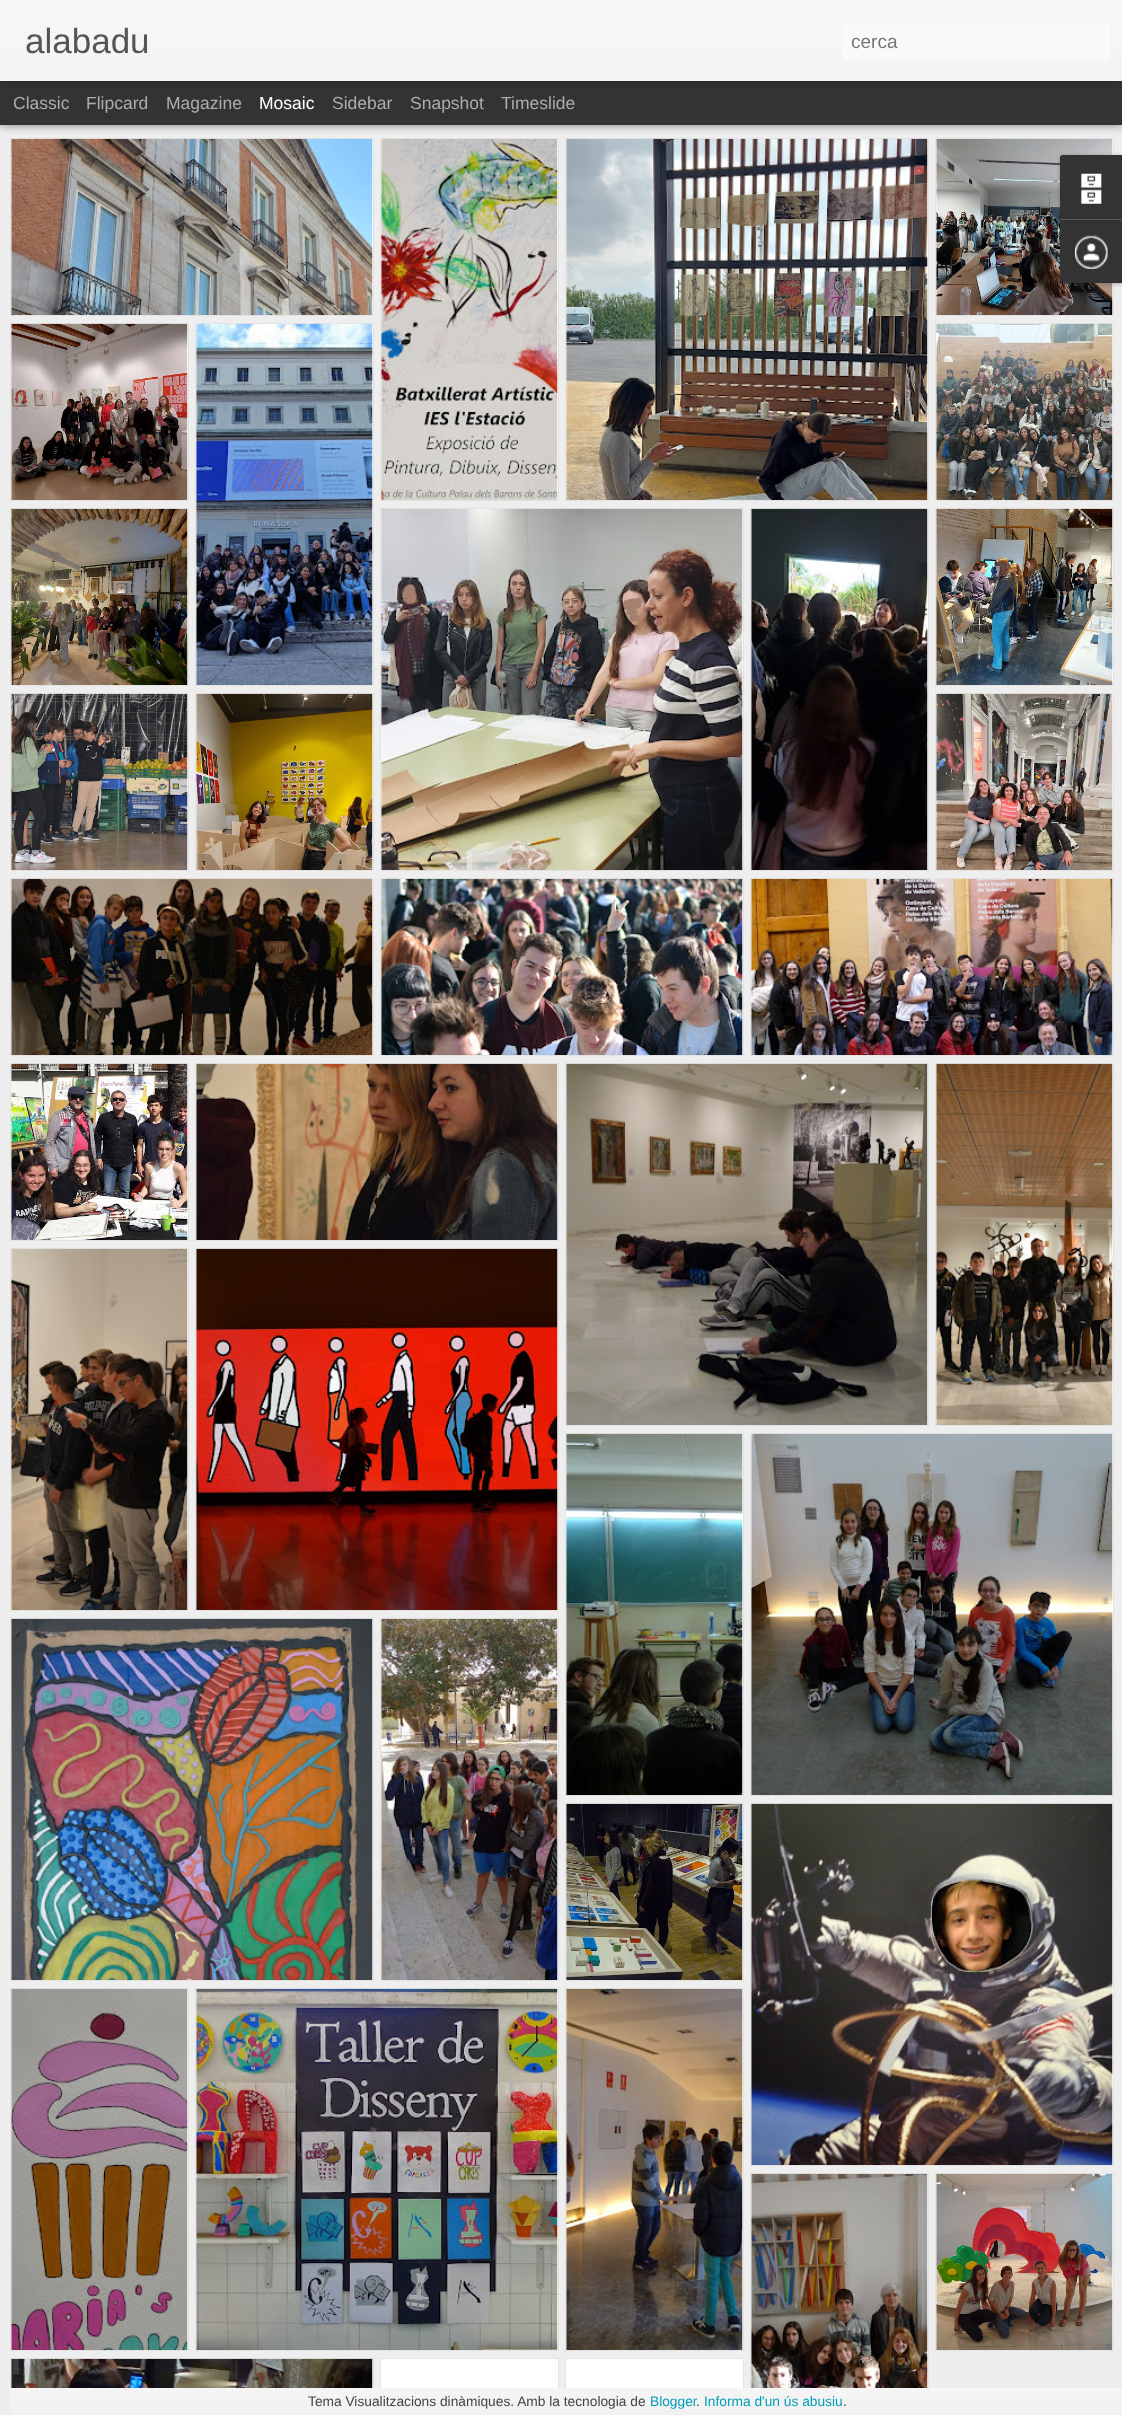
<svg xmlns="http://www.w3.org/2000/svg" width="1122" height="2415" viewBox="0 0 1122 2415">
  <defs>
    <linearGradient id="g1" gradientUnits="userSpaceOnUse" x1="0" y1="0" x2="0" y2="81"><stop offset="0" stop-color="rgb(247,247,247)"/><stop offset="1" stop-color="rgb(244,244,244)"/></linearGradient>
    <linearGradient id="g2" gradientUnits="userSpaceOnUse" x1="578" y1="2388" x2="578" y2="2415"><stop offset="0" stop-color="rgb(245,245,245)"/><stop offset="1" stop-color="rgb(241,241,241)"/></linearGradient>
  </defs>
  <rect width="100%" height="100%" fill="rgb(238,238,238)"/>
  <rect x="10.5" y="138.5" width="363" height="177" fill="rgb(255,255,255)" stroke="rgb(227,227,227)"/>
  <image x="11" y="138" width="362" height="177" href="pic1.png"/>
  <rect x="380.5" y="138.5" width="178" height="362" fill="rgb(255,255,255)" stroke="rgb(227,227,227)"/>
  <image x="381" y="139" width="177" height="361" href="pic2.png"/>
  <rect x="565.5" y="138.5" width="363" height="362" fill="rgb(255,255,255)" stroke="rgb(227,227,227)"/>
  <image x="566" y="138" width="362" height="362" href="pic3.png"/>
  <rect x="935.5" y="138.5" width="178" height="177" fill="rgb(255,255,255)" stroke="rgb(227,227,227)"/>
  <image x="936" y="138" width="177" height="177" href="pic4.png"/>
  <rect x="0" y="81" width="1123" height="44" fill="rgba(0,0,0,0.5)" filter="blur(5px)"/>
  <rect x="0" y="81" width="1122" height="44" fill="rgb(51,51,51)"/>
  <rect x="0" y="0" width="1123" height="81" fill="rgba(0,0,0,0.3)" filter="blur(3px)"/>
  <rect x="0" y="0" width="1122" height="81" fill="url(#g1)"/>
  <text x="25" y="53" font-family="Liberation Sans" font-size="35" fill="rgb(85,85,85)">alabadu</text>
  <rect x="843" y="23" width="267" height="37" rx="4" fill="rgb(250,250,250)"/>
  <text x="851" y="48" font-family="Liberation Sans" font-size="19" fill="rgb(117,117,117)">cerca</text>
  <g font-family="Liberation Sans" font-size="17.5" fill="rgb(173,173,173)">
    <text x="13" y="109">Classic</text>
    <text x="86" y="109">Flipcard</text>
    <text x="166" y="109">Magazine</text>
  </g>
  <text x="259" y="109" font-family="Liberation Sans" font-size="17.5" fill="rgb(255,255,255)">Mosaic</text>
  <g font-family="Liberation Sans" font-size="17.5" fill="rgb(173,173,173)">
    <text x="332" y="109">Sidebar</text>
    <text x="410" y="109">Snapshot</text>
    <text x="501" y="109">Timeslide</text>
  </g>
  <rect x="10.5" y="323.5" width="178" height="177" fill="rgb(255,255,255)" stroke="rgb(227,227,227)"/>
  <image x="11" y="323" width="177" height="177" href="pic5.png"/>
  <rect x="195.5" y="323.5" width="178" height="362" fill="rgb(255,255,255)" stroke="rgb(227,227,227)"/>
  <image x="196" y="323" width="177" height="362" href="pic6.png"/>
  <rect x="935.5" y="323.5" width="178" height="177" fill="rgb(255,255,255)" stroke="rgb(227,227,227)"/>
  <image x="936" y="323" width="177" height="177" href="pic7.png"/>
  <rect x="10.5" y="508.5" width="178" height="177" fill="rgb(255,255,255)" stroke="rgb(227,227,227)"/>
  <image x="11" y="508" width="177" height="177" href="pic8.png"/>
  <rect x="380.5" y="508.5" width="363" height="362" fill="rgb(255,255,255)" stroke="rgb(227,227,227)"/>
  <image x="381" y="508" width="362" height="362" href="pic9.png"/>
  <rect x="750.5" y="508.5" width="178" height="362" fill="rgb(255,255,255)" stroke="rgb(227,227,227)"/>
  <image x="751" y="508" width="177" height="362" href="pic10.png"/>
  <rect x="935.5" y="508.5" width="178" height="177" fill="rgb(255,255,255)" stroke="rgb(227,227,227)"/>
  <image x="936" y="508" width="177" height="177" href="pic11.png"/>
  <rect x="10.5" y="693.5" width="178" height="177" fill="rgb(255,255,255)" stroke="rgb(227,227,227)"/>
  <image x="11" y="693" width="177" height="177" href="pic12.png"/>
  <rect x="195.5" y="693.5" width="178" height="177" fill="rgb(255,255,255)" stroke="rgb(227,227,227)"/>
  <image x="196" y="693" width="177" height="177" href="pic13.png"/>
  <rect x="935.5" y="693.5" width="178" height="177" fill="rgb(255,255,255)" stroke="rgb(227,227,227)"/>
  <image x="936" y="693" width="177" height="177" href="pic14.png"/>
  <rect x="10.5" y="878.5" width="363" height="177" fill="rgb(255,255,255)" stroke="rgb(227,227,227)"/>
  <image x="11" y="878" width="362" height="177" href="pic15.png"/>
  <rect x="380.5" y="878.5" width="363" height="177" fill="rgb(255,255,255)" stroke="rgb(227,227,227)"/>
  <image x="381" y="878" width="362" height="177" href="pic16.png"/>
  <rect x="750.5" y="878.5" width="363" height="177" fill="rgb(255,255,255)" stroke="rgb(227,227,227)"/>
  <image x="751" y="878" width="362" height="177" href="pic17.png"/>
  <rect x="10.5" y="1063.5" width="178" height="177" fill="rgb(255,255,255)" stroke="rgb(227,227,227)"/>
  <image x="11" y="1063" width="177" height="177" href="pic18.png"/>
  <rect x="195.5" y="1063.5" width="363" height="177" fill="rgb(255,255,255)" stroke="rgb(227,227,227)"/>
  <image x="196" y="1063" width="362" height="177" href="pic19.png"/>
  <rect x="565.5" y="1063.5" width="363" height="362" fill="rgb(255,255,255)" stroke="rgb(227,227,227)"/>
  <image x="566" y="1063" width="362" height="362" href="pic20.png"/>
  <rect x="935.5" y="1063.5" width="178" height="362" fill="rgb(255,255,255)" stroke="rgb(227,227,227)"/>
  <image x="936" y="1063" width="177" height="362" href="pic21.png"/>
  <rect x="10.5" y="1248.5" width="178" height="362" fill="rgb(255,255,255)" stroke="rgb(227,227,227)"/>
  <image x="11" y="1248" width="177" height="362" href="pic22.png"/>
  <rect x="195.5" y="1248.5" width="363" height="362" fill="rgb(255,255,255)" stroke="rgb(227,227,227)"/>
  <image x="196" y="1248" width="362" height="362" href="pic23.png"/>
  <rect x="565.5" y="1433.5" width="178" height="362" fill="rgb(255,255,255)" stroke="rgb(227,227,227)"/>
  <image x="566" y="1433" width="177" height="362" href="pic24.png"/>
  <rect x="750.5" y="1433.5" width="363" height="362" fill="rgb(255,255,255)" stroke="rgb(227,227,227)"/>
  <image x="751" y="1433" width="362" height="362" href="pic25.png"/>
  <rect x="10.5" y="1618.5" width="363" height="362" fill="rgb(255,255,255)" stroke="rgb(227,227,227)"/>
  <image x="11" y="1618" width="362" height="362" href="pic26.png"/>
  <rect x="380.5" y="1618.5" width="178" height="362" fill="rgb(255,255,255)" stroke="rgb(227,227,227)"/>
  <image x="381" y="1618" width="177" height="362" href="pic27.png"/>
  <rect x="565.5" y="1803.5" width="178" height="177" fill="rgb(255,255,255)" stroke="rgb(227,227,227)"/>
  <image x="566" y="1803" width="177" height="177" href="pic28.png"/>
  <rect x="750.5" y="1803.5" width="363" height="362" fill="rgb(255,255,255)" stroke="rgb(227,227,227)"/>
  <image x="751" y="1803" width="362" height="362" href="pic29.png"/>
  <rect x="10.5" y="1988.5" width="178" height="362" fill="rgb(255,255,255)" stroke="rgb(227,227,227)"/>
  <image x="11" y="1988" width="177" height="362" href="pic30.png"/>
  <rect x="195.5" y="1988.5" width="363" height="362" fill="rgb(255,255,255)" stroke="rgb(227,227,227)"/>
  <image x="196" y="1988" width="362" height="362" href="pic31.png"/>
  <rect x="565.5" y="1988.5" width="178" height="362" fill="rgb(255,255,255)" stroke="rgb(227,227,227)"/>
  <image x="566" y="1988" width="177" height="362" href="pic32.png"/>
  <rect x="751" y="2174" width="177" height="214" fill="rgb(255,255,255)"/>
  <rect x="750.5" y="2173.5" width="178" height="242" fill="none" stroke="rgb(227,227,227)"/>
  <image x="751" y="2173" width="177" height="215" href="pic33.png"/>
  <rect x="935.5" y="2173.5" width="178" height="177" fill="rgb(255,255,255)" stroke="rgb(227,227,227)"/>
  <image x="936" y="2173" width="177" height="177" href="pic34.png"/>
  <rect x="11" y="2359" width="362" height="29" fill="rgb(255,255,255)"/>
  <rect x="10.5" y="2358.5" width="363" height="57" fill="none" stroke="rgb(227,227,227)"/>
  <image x="11" y="2358" width="362" height="30" href="pic35.png"/>
  <rect x="381" y="2359" width="177" height="29" fill="rgb(255,255,255)"/>
  <rect x="380.5" y="2358.5" width="178" height="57" fill="none" stroke="rgb(227,227,227)"/>
  <rect x="566" y="2359" width="177" height="29" fill="rgb(255,255,255)"/>
  <rect x="565.5" y="2358.5" width="178" height="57" fill="none" stroke="rgb(227,227,227)"/>
  <rect x="1060" y="156" width="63" height="128" rx="2.5" fill="rgba(0,0,0,0.3)" filter="blur(2px)"/>
  <path d="M1062.5 155H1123V219H1060V157.5C1060 156 1061 155 1062.5 155Z" fill="rgb(51,51,51)"/>
  <image x="1081" y="173" width="21" height="31" href="pic36.png"/>
  <path d="M1060 219H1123V283H1062.5C1061 283 1060 282 1060 280.5Z" fill="rgb(51,51,51)"/>
  <rect x="1060" y="219" width="62" height="1" fill="rgb(88,88,88)"/>
  <image x="1075" y="235" width="33" height="34" href="pic37.png"/>
  <rect x="10" y="2388" width="1112" height="27" fill="url(#g2)"/>
  <text x="308" y="2406" font-family="Liberation Sans" font-size="13.75" fill="rgb(68,68,68)">Tema Visualitzacions dinàmiques. Amb la tecnologia de</text>
  <text x="650" y="2406" font-family="Liberation Sans" font-size="13.75" fill="rgb(0,158,184)">Blogger</text>
  <text x="696" y="2406" font-family="Liberation Sans" font-size="13.75" fill="rgb(68,68,68)">.</text>
  <text x="704" y="2406" font-family="Liberation Sans" font-size="13.75" fill="rgb(0,158,184)">Informa d'un ús abusiu</text>
  <text x="843" y="2406" font-family="Liberation Sans" font-size="13.75" fill="rgb(68,68,68)">.</text>
</svg>
